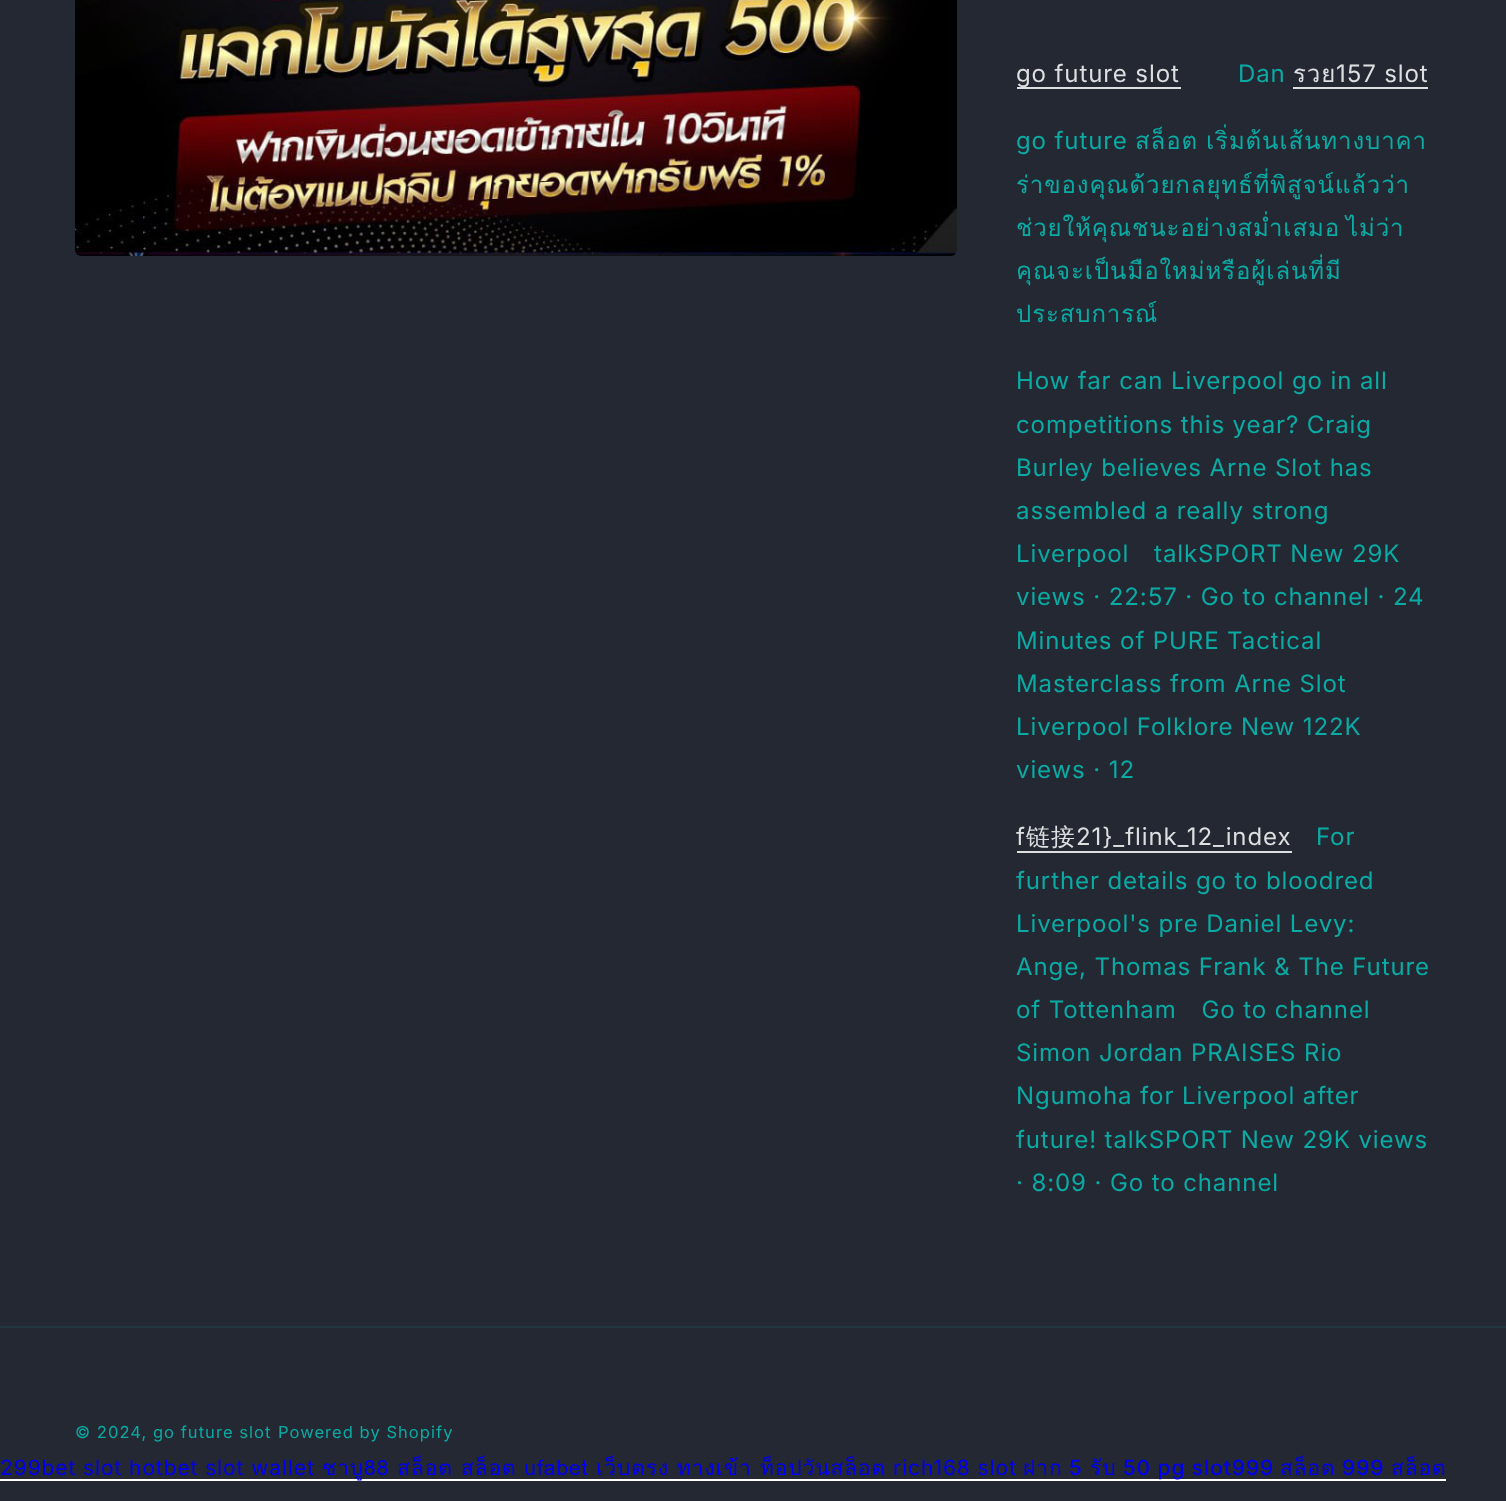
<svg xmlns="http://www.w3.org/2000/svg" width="1506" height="1501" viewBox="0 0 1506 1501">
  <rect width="100%" height="100%" fill="rgb(36,40,51)"/>
  <image x="75" y="0" width="882" height="256" href="pic1.png"/>
  <rect x="1017" y="87" width="164" height="2" fill="rgb(222,223,224)"/>
  <text x="1016" y="82" font-family="Inter" font-size="24" letter-spacing="0.9" fill="rgb(222,223,224)">go future slot</text>
  <text x="1238" y="82" font-family="Inter" font-size="24" letter-spacing="0.9" fill="rgb(10,171,164)">Dan</text>
  <text x="1293" y="82" font-family="Loma" font-size="24" letter-spacing="0.9" fill="rgb(222,223,224)">รวย</text>
  <rect x="1293" y="87" width="135" height="2" fill="rgb(222,223,224)"/>
  <text x="1336" y="82" font-family="Inter" font-size="24" letter-spacing="0.9" fill="rgb(222,223,224)">157 slot</text>
  <text x="1016" y="149" font-family="Inter" font-size="24" letter-spacing="0.9" fill="rgb(10,171,164)">go future</text>
  <g font-family="Loma" font-size="24" letter-spacing="0.9" fill="rgb(10,171,164)">
    <text x="1135" y="149">สล็อต</text>
    <text x="1206" y="149">เริ่มต้นเส้นทางบาคา</text>
    <text>
      <tspan x="1016" y="193">ร่าของคุณด้วยกลยุทธ์ที่พิสูจน์แล้วว่า</tspan>
      <tspan x="1016" y="236" word-spacing="-3">ช่วยให้คุณชนะอย่างสม่ำเสมอ ไม่ว่า</tspan>
      <tspan x="1016" y="279">คุณจะเป็นมือใหม่หรือผู้เล่นที่มี</tspan>
      <tspan x="1016" y="322">ประสบการณ์</tspan>
    </text>
  </g>
  <g font-family="Inter" font-size="24" letter-spacing="0.9" fill="rgb(10,171,164)">
    <text>
      <tspan x="1016" y="389">How far can Liverpool go in all</tspan>
      <tspan x="1016" y="433">competitions this year? Craig</tspan>
      <tspan x="1016" y="476">Burley believes Arne Slot has</tspan>
      <tspan x="1016" y="519">assembled a really strong</tspan>
      <tspan x="1016" y="562">Liverpool talkSPORT New 29K</tspan>
      <tspan x="1016" y="605">views · 22:57 · Go to channel · 24</tspan>
      <tspan x="1016" y="649">Minutes of PURE Tactical</tspan>
      <tspan x="1016" y="692">Masterclass from Arne Slot</tspan>
      <tspan x="1016" y="735">Liverpool Folklore New 122K</tspan>
      <tspan x="1016" y="778">views · 12</tspan>
    </text>
  </g>
  <text x="1016" y="845" font-family="Inter" font-size="24" letter-spacing="0.9" fill="rgb(222,223,224)">f</text>
  <text x="1026" y="845" font-family="WenQuanYi Zen Hei" font-size="24" font-weight="500" letter-spacing="0.9" fill="rgb(222,223,224)">链接</text>
  <rect x="1017" y="851" width="275" height="2" fill="rgb(222,223,224)"/>
  <text x="1076" y="845" font-family="Inter" font-size="24" letter-spacing="0.9" fill="rgb(222,223,224)">21}_flink_12_index</text>
  <g font-family="Inter" font-size="24" letter-spacing="0.9" fill="rgb(10,171,164)">
    <text x="1316" y="845">For</text>
    <text>
      <tspan x="1016" y="889">further details go to bloodred</tspan>
      <tspan x="1016" y="932">Liverpool's pre Daniel Levy:</tspan>
      <tspan x="1016" y="975">Ange, Thomas Frank &amp; The Future</tspan>
      <tspan x="1016" y="1018">of Tottenham Go to channel</tspan>
      <tspan x="1016" y="1061">Simon Jordan PRAISES Rio</tspan>
      <tspan x="1016" y="1104">Ngumoha for Liverpool after</tspan>
      <tspan x="1016" y="1148">future! talkSPORT New 29K views</tspan>
      <tspan x="1016" y="1191">· 8:09 · Go to channel</tspan>
    </text>
  </g>
  <rect x="0" y="1326" width="1506" height="2" fill="rgb(33,54,63)"/>
  <g font-family="Inter" font-size="16.5" letter-spacing="1.05" fill="rgb(10,171,164)">
    <text x="75" y="1438">© 2024, go future slot</text>
    <text x="278" y="1438">Powered by Shopify</text>
  </g>
  <text x="0" y="1475" font-family="Inter" font-size="21" letter-spacing="0.9" fill="rgb(0,0,238)">299bet slot hotbet slot wallet</text>
  <rect x="0" y="1479" width="1446" height="2" fill="rgb(255,255,255)"/>
  <g font-family="Loma" font-size="21" letter-spacing="0.9" fill="rgb(0,0,238)">
    <text x="322" y="1475">ชาบู88 สล็อต</text>
    <text x="461" y="1475">สล็อต ufabet เว็บตรง ทางเข้า</text>
    <text x="760" y="1475">ท็อปวันสล็อต</text>
  </g>
  <text x="893" y="1475" font-family="Inter" font-size="21" letter-spacing="0.9" fill="rgb(0,0,238)">rich168 slot</text>
  <text x="1023" y="1475" font-family="Loma" font-size="21" letter-spacing="0.9" fill="rgb(0,0,238)">ฝาก</text>
  <text x="1069" y="1475" font-family="Inter" font-size="21" font-weight="500" letter-spacing="0.9" fill="rgb(0,0,238)">5</text>
  <text x="1090" y="1475" font-family="Loma" font-size="21" letter-spacing="0.9" fill="rgb(0,0,238)">รับ</text>
  <text x="1123" y="1475" font-family="Inter" font-size="21" font-weight="500" letter-spacing="0.9" fill="rgb(0,0,238)">50 pg slot999</text>
  <text x="1280" y="1475" font-family="Loma" font-size="21" letter-spacing="0.9" fill="rgb(0,0,238)">สล็อต</text>
  <text x="1342" y="1475" font-family="Inter" font-size="21" font-weight="500" letter-spacing="0.9" fill="rgb(0,0,238)">999</text>
  <text x="1391" y="1475" font-family="Loma" font-size="21" letter-spacing="0.9" fill="rgb(0,0,238)">สล็อต</text>
</svg>
